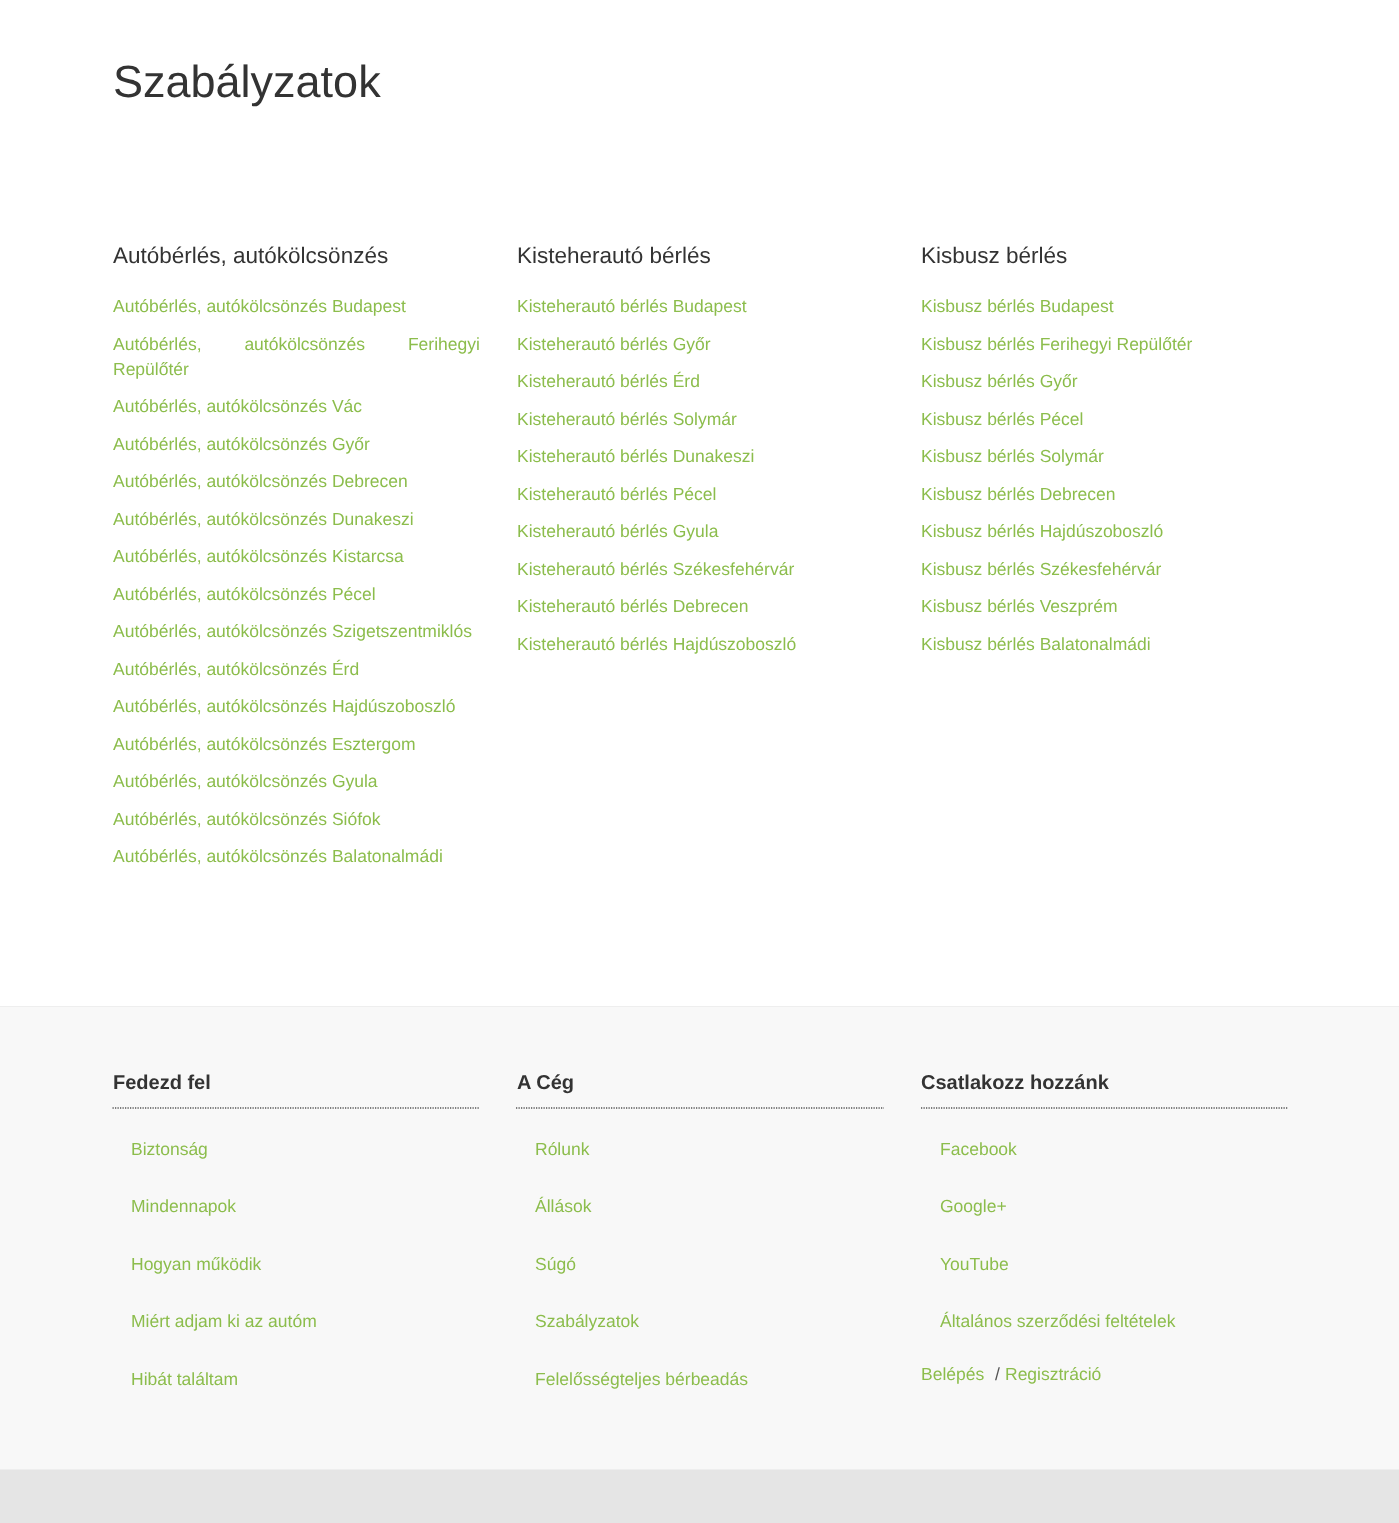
<svg xmlns="http://www.w3.org/2000/svg" width="1399" height="1523" viewBox="0 0 1399 1523">
  <rect width="100%" height="100%" fill="rgb(255,255,255)"/>
  <text x="113" y="97" font-family="Liberation Sans" font-size="45" fill="rgb(51,51,51)">Szabályzatok</text>
  <text x="113" y="263" font-family="Liberation Sans" font-size="22.5" fill="rgb(51,51,51)">Autóbérlés, autókölcsönzés</text>
  <g font-family="Liberation Sans" font-size="17.5" fill="rgb(140,189,76)">
    <text x="113" y="312">Autóbérlés, autókölcsönzés Budapest</text>
    <text>
      <tspan x="113" y="350" word-spacing="38">Autóbérlés, autókölcsönzés Ferihegyi</tspan>
      <tspan x="113" y="375">Repülőtér</tspan>
    </text>
    <text x="113" y="412">Autóbérlés, autókölcsönzés Vác</text>
    <text x="113" y="450">Autóbérlés, autókölcsönzés Győr</text>
    <text x="113" y="487">Autóbérlés, autókölcsönzés Debrecen</text>
    <text x="113" y="525">Autóbérlés, autókölcsönzés Dunakeszi</text>
    <text x="113" y="562">Autóbérlés, autókölcsönzés Kistarcsa</text>
    <text x="113" y="600">Autóbérlés, autókölcsönzés Pécel</text>
    <text x="113" y="637">Autóbérlés, autókölcsönzés Szigetszentmiklós</text>
    <text x="113" y="675">Autóbérlés, autókölcsönzés Érd</text>
    <text x="113" y="712">Autóbérlés, autókölcsönzés Hajdúszoboszló</text>
    <text x="113" y="750">Autóbérlés, autókölcsönzés Esztergom</text>
    <text x="113" y="787">Autóbérlés, autókölcsönzés Gyula</text>
    <text x="113" y="825">Autóbérlés, autókölcsönzés Siófok</text>
    <text x="113" y="862">Autóbérlés, autókölcsönzés Balatonalmádi</text>
  </g>
  <text x="517" y="263" font-family="Liberation Sans" font-size="22.5" fill="rgb(51,51,51)">Kisteherautó bérlés</text>
  <g font-family="Liberation Sans" font-size="17.5" fill="rgb(140,189,76)">
    <text x="517" y="312">Kisteherautó bérlés Budapest</text>
    <text x="517" y="350">Kisteherautó bérlés Győr</text>
    <text x="517" y="387">Kisteherautó bérlés Érd</text>
    <text x="517" y="425">Kisteherautó bérlés Solymár</text>
    <text x="517" y="462">Kisteherautó bérlés Dunakeszi</text>
    <text x="517" y="500">Kisteherautó bérlés Pécel</text>
    <text x="517" y="537">Kisteherautó bérlés Gyula</text>
    <text x="517" y="575">Kisteherautó bérlés Székesfehérvár</text>
    <text x="517" y="612">Kisteherautó bérlés Debrecen</text>
    <text x="517" y="650">Kisteherautó bérlés Hajdúszoboszló</text>
  </g>
  <text x="921" y="263" font-family="Liberation Sans" font-size="22.5" fill="rgb(51,51,51)">Kisbusz bérlés</text>
  <g font-family="Liberation Sans" font-size="17.5" fill="rgb(140,189,76)">
    <text x="921" y="312">Kisbusz bérlés Budapest</text>
    <text x="921" y="350">Kisbusz bérlés Ferihegyi Repülőtér</text>
    <text x="921" y="387">Kisbusz bérlés Győr</text>
    <text x="921" y="425">Kisbusz bérlés Pécel</text>
    <text x="921" y="462">Kisbusz bérlés Solymár</text>
    <text x="921" y="500">Kisbusz bérlés Debrecen</text>
    <text x="921" y="537">Kisbusz bérlés Hajdúszoboszló</text>
    <text x="921" y="575">Kisbusz bérlés Székesfehérvár</text>
    <text x="921" y="612">Kisbusz bérlés Veszprém</text>
    <text x="921" y="650">Kisbusz bérlés Balatonalmádi</text>
  </g>
  <rect x="0" y="1007" width="1399" height="462" fill="rgb(248,248,248)"/>
  <rect x="0" y="1006" width="1399" height="1" fill="rgb(238,238,238)"/>
  <path d="M112.5 1108H479" fill="none" stroke="rgb(0,0,0)" stroke-width="1.2" stroke-dasharray="1.25 1.25"/>
  <text x="113" y="1089" font-family="Liberation Sans" font-size="20" font-weight="bold" fill="rgb(51,51,51)">Fedezd fel</text>
  <g font-family="Liberation Sans" font-size="17.5" fill="rgb(140,189,76)">
    <text x="131" y="1155">Biztonság</text>
    <text x="131" y="1212">Mindennapok</text>
    <text x="131" y="1270">Hogyan működik</text>
    <text x="131" y="1327">Miért adjam ki az autóm</text>
    <text x="131" y="1385">Hibát találtam</text>
  </g>
  <path d="M516 1108H884" fill="none" stroke="rgb(0,0,0)" stroke-width="1.2" stroke-dasharray="1.25 1.25"/>
  <text x="517" y="1089" font-family="Liberation Sans" font-size="20" font-weight="bold" fill="rgb(51,51,51)">A Cég</text>
  <g font-family="Liberation Sans" font-size="17.5" fill="rgb(140,189,76)">
    <text x="535" y="1155">Rólunk</text>
    <text x="535" y="1212">Állások</text>
    <text x="535" y="1270">Súgó</text>
    <text x="535" y="1327">Szabályzatok</text>
    <text x="535" y="1385">Felelősségteljes bérbeadás</text>
  </g>
  <path d="M921 1108H1287.5" fill="none" stroke="rgb(0,0,0)" stroke-width="1.2" stroke-dasharray="1.25 1.25"/>
  <text x="921" y="1089" font-family="Liberation Sans" font-size="20" font-weight="bold" fill="rgb(51,51,51)">Csatlakozz hozzánk</text>
  <g font-family="Liberation Sans" font-size="17.5" fill="rgb(140,189,76)">
    <text x="940" y="1155">Facebook</text>
    <text x="940" y="1212">Google+</text>
    <text x="940" y="1270">YouTube</text>
    <text x="940" y="1327">Általános szerződési feltételek</text>
    <text x="921" y="1380">Belépés</text>
  </g>
  <text x="995" y="1380" font-family="Liberation Sans" font-size="17.5" fill="rgb(85,85,85)">/</text>
  <text x="1005" y="1380" font-family="Liberation Sans" font-size="17.5" fill="rgb(140,189,76)">Regisztráció</text>
  <rect x="0" y="1470" width="1399" height="53" fill="rgb(229,229,229)"/>
  <rect x="0" y="1469" width="1399" height="1" fill="rgb(238,238,238)"/>
</svg>
